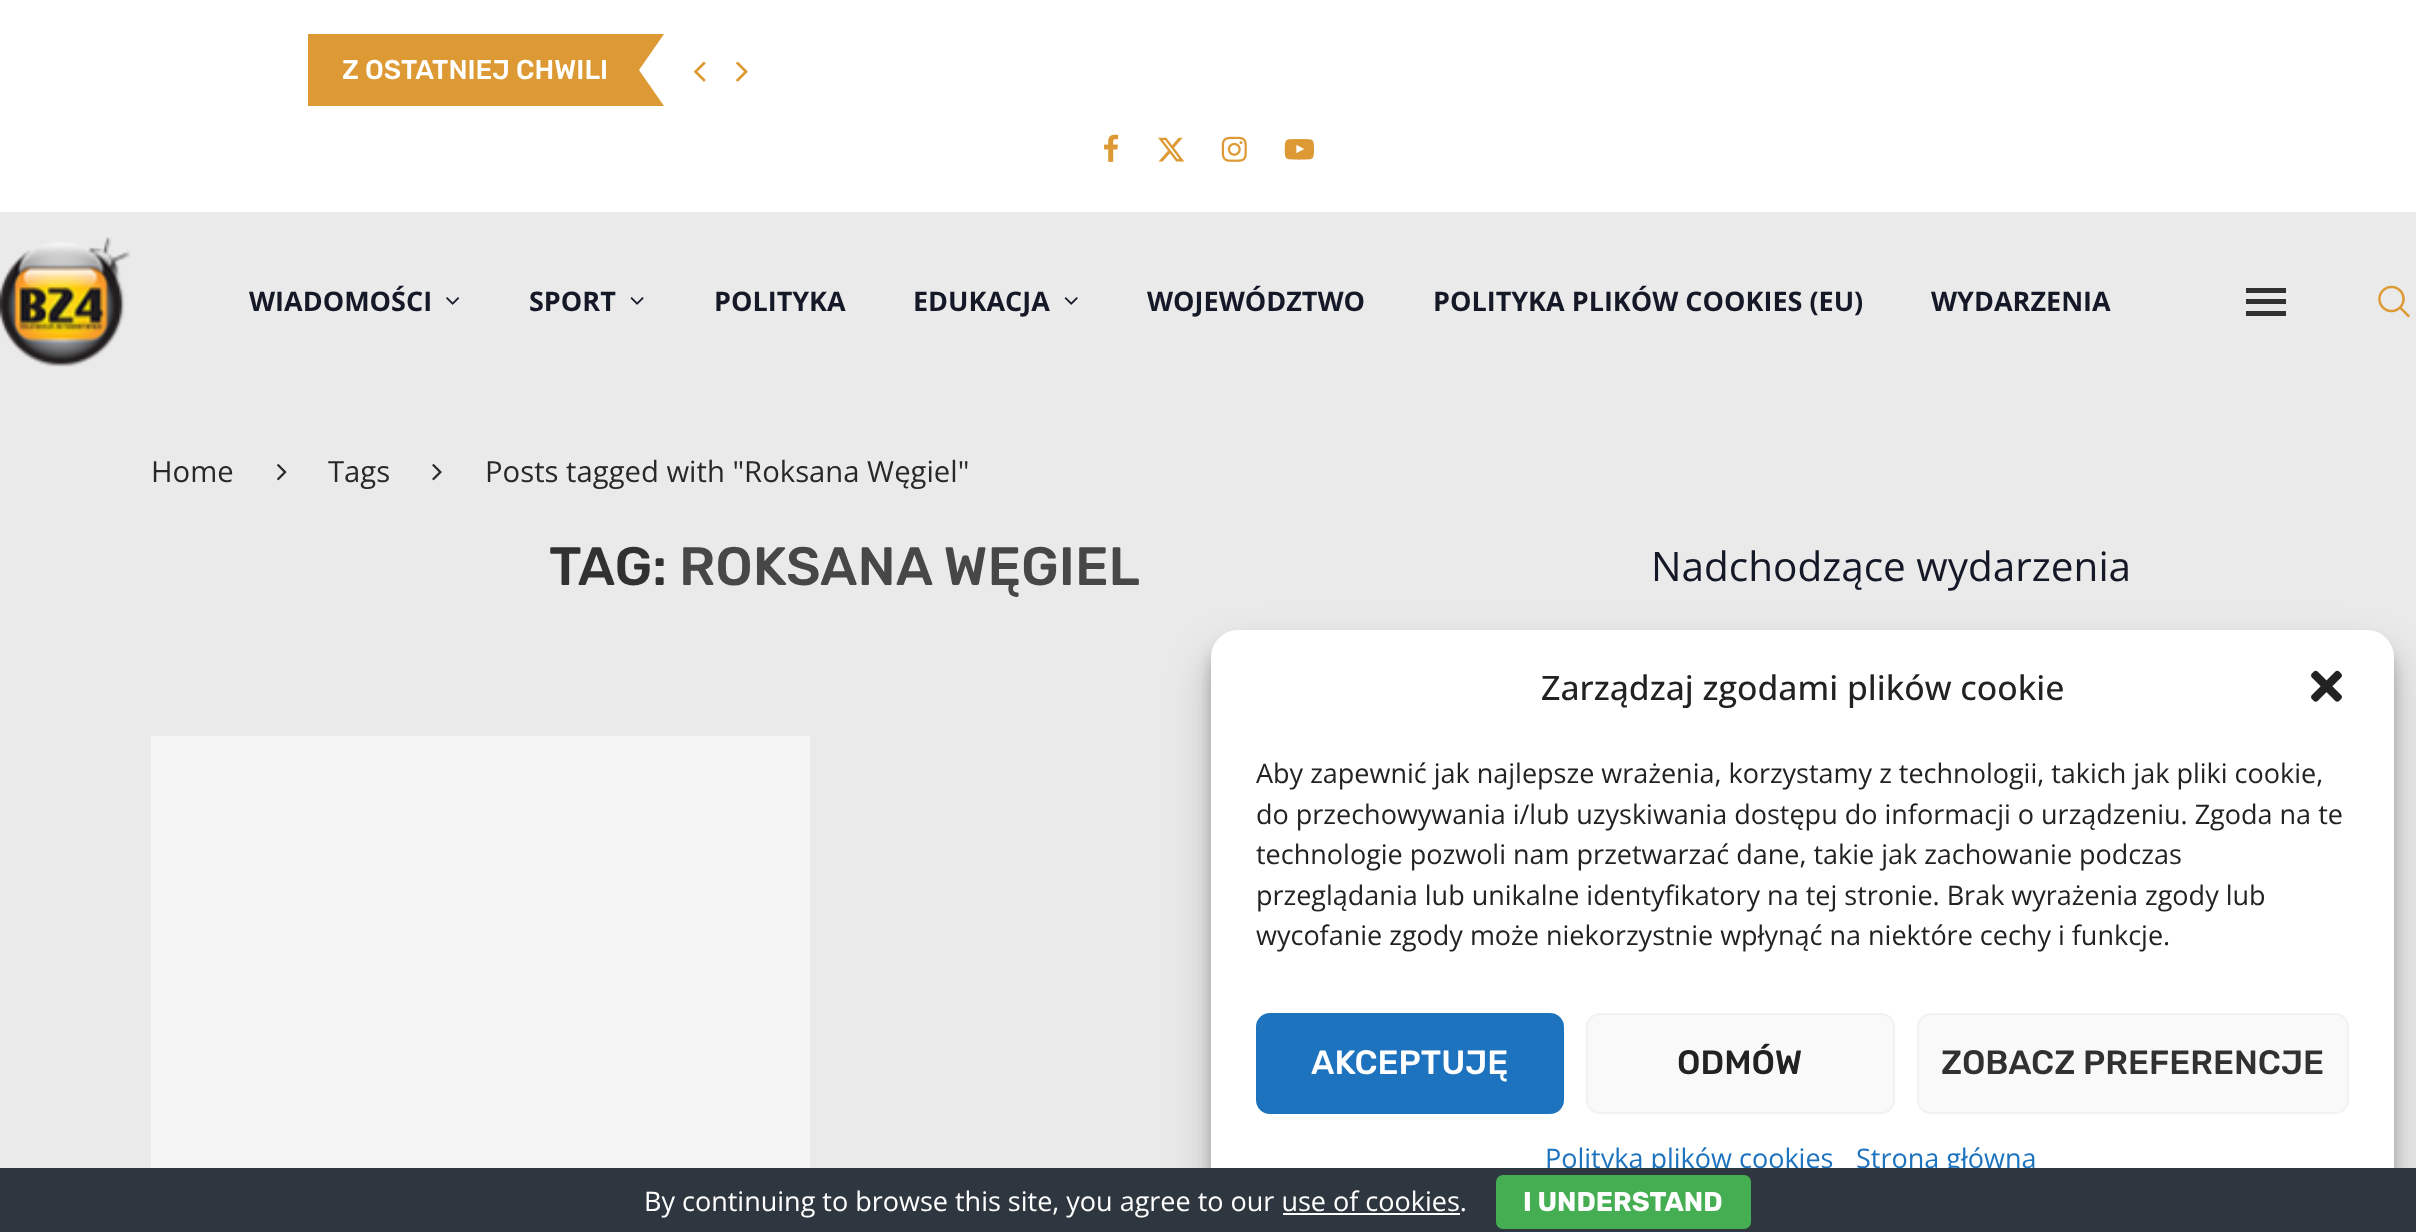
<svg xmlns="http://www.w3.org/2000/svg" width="2416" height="1232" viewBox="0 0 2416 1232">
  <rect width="100%" height="100%" fill="rgb(234,234,234)"/>
  <rect x="0" y="0" width="2416" height="212" fill="rgb(255,255,255)"/>
  <rect x="308" y="34" width="356" height="72" fill="rgb(221,153,51)"/>
  <text x="342" y="79" font-family="Rubik" font-size="27" font-weight="500" fill="rgb(255,255,255)">Z OSTATNIEJ CHWILI</text>
  <path d="M664 34V106L639 70Z" fill="rgb(255,255,255)"/>
  <image x="693" y="61" width="13" height="21" href="pic1.png"/>
  <image x="736" y="61" width="12" height="21" href="pic2.png"/>
  <image x="1104" y="134" width="15" height="28" href="pic3.png"/>
  <image x="1158" y="137" width="27" height="25" href="pic4.png"/>
  <image x="1221" y="136" width="26" height="26" href="pic5.png"/>
  <image x="1284" y="139" width="30" height="21" href="pic6.png"/>
  <image x="0" y="237" width="131" height="130" href="pic7.png"/>
  <text x="249" y="311" font-family="Open Sans" font-size="27" font-weight="bold" fill="rgb(20,24,39)">WIADOMOŚCI</text>
  <image x="446" y="297" width="14" height="8" href="pic8.png"/>
  <text x="529" y="311" font-family="Open Sans" font-size="27" font-weight="bold" fill="rgb(20,24,39)">SPORT</text>
  <image x="630" y="297" width="14" height="8" href="pic9.png"/>
  <g font-family="Open Sans" font-size="27" font-weight="bold" fill="rgb(20,24,39)">
    <text x="714" y="311">POLITYKA</text>
    <text x="913" y="311">EDUKACJA</text>
  </g>
  <image x="1064" y="297" width="14" height="8" href="pic10.png"/>
  <g font-family="Open Sans" font-size="27" font-weight="bold" fill="rgb(20,24,39)">
    <text x="1147" y="311">WOJEWÓDZTWO</text>
    <text x="1433" y="311">POLITYKA PLIKÓW COOKIES (EU)</text>
    <text x="1931" y="311">WYDARZENIA</text>
  </g>
  <rect x="2246" y="288" width="40" height="5" fill="rgb(49,49,49)"/>
  <rect x="2246" y="311" width="40" height="5" fill="rgb(49,49,49)"/>
  <rect x="2246" y="299" width="40" height="5" fill="rgb(49,49,49)"/>
  <image x="2378" y="285" width="32" height="33" href="pic11.png"/>
  <text x="151" y="482" font-family="Open Sans" font-size="29.25" fill="rgb(40,40,40)">Home</text>
  <image x="277" y="464" width="10" height="17" href="pic12.png"/>
  <text x="328" y="482" font-family="Open Sans" font-size="29.25" fill="rgb(40,40,40)">Tags</text>
  <image x="432" y="464" width="10" height="17" href="pic13.png"/>
  <text x="485" y="482" font-family="Open Sans" font-size="29.25" fill="rgb(40,40,40)">Posts tagged with "Roksana Węgiel"</text>
  <text x="549" y="585" font-family="Rubik" font-size="54" font-weight="500" fill="rgb(49,49,49)">TAG:</text>
  <text x="679" y="585" font-family="Rubik" font-size="54" font-weight="500" fill="rgb(71,71,71)">ROKSANA WĘGIEL</text>
  <rect x="151" y="736" width="659" height="432" fill="rgb(245,245,245)"/>
  <text x="1651" y="581" font-family="Open Sans" font-size="40.5" fill="rgb(20,24,39)">Nadchodzące wydarzenia</text>
  <rect x="1211" y="644" width="1183" height="580" rx="27" fill="rgba(0,0,0,0.23)" filter="blur(7px)"/>
  <rect x="1211" y="653" width="1183" height="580" rx="27" fill="rgba(0,0,0,0.19)" filter="blur(22.5px)"/>
  <rect x="1211" y="630" width="1183" height="581" rx="27" fill="rgb(255,255,255)"/>
  <text x="1541" y="700" font-family="Open Sans" font-size="33.75" font-weight="500" fill="rgb(34,34,34)">Zarządzaj zgodami plików cookie</text>
  <image x="2311" y="670" width="31" height="32" href="pic14.png"/>
  <g font-family="Open Sans" font-size="27" fill="rgb(34,34,34)">
    <text>
      <tspan x="1256" y="783">Aby zapewnić jak najlepsze wrażenia, korzystamy z technologii, takich jak pliki cookie,</tspan>
      <tspan x="1256" y="824">do przechowywania i/lub uzyskiwania dostępu do informacji o urządzeniu. Zgoda na te</tspan>
      <tspan x="1256" y="864">technologie pozwoli nam przetwarzać dane, takie jak zachowanie podczas</tspan>
      <tspan x="1256" y="905">przeglądania lub unikalne identyfikatory na tej stronie. Brak wyrażenia zgody lub</tspan>
      <tspan x="1256" y="945">wycofanie zgody może niekorzystnie wpłynąć na niektóre cechy i funkcje.</tspan>
    </text>
  </g>
  <rect x="1257" y="1014" width="306" height="99" rx="13" fill="rgb(30,115,190)" stroke="rgb(30,115,190)" stroke-width="2"/>
  <text x="1311" y="1074" font-family="Rubik" font-size="33.75" font-weight="500" fill="rgb(255,255,255)">AKCEPTUJĘ</text>
  <rect x="1587" y="1014" width="307" height="99" rx="13" fill="rgb(249,249,249)" stroke="rgb(242,242,242)" stroke-width="2"/>
  <text x="1677" y="1074" font-family="Rubik" font-size="33.75" font-weight="500" fill="rgb(34,34,34)">ODMÓW</text>
  <rect x="1918" y="1014" width="430" height="99" rx="13" fill="rgb(249,249,249)" stroke="rgb(242,242,242)" stroke-width="2"/>
  <text x="1941" y="1074" font-family="Rubik" font-size="33.75" font-weight="500" fill="rgb(49,49,49)">ZOBACZ PREFERENCJE</text>
  <g font-family="Open Sans" font-size="27" fill="rgb(30,115,190)">
    <text x="1545" y="1168">Polityka plików cookies</text>
    <text x="1856" y="1168">Strona główna</text>
  </g>
  <rect x="0" y="1168" width="2416" height="64" fill="rgb(46,54,63)"/>
  <text x="644" y="1211" font-family="Open Sans" font-size="27" fill="rgb(255,255,255)">By continuing to browse this site, you agree to our use of cookies.</text>
  <rect x="1496" y="1175" width="255" height="54" rx="7" fill="rgb(69,174,82)"/>
  <text x="1523" y="1211" font-family="Rubik" font-size="27" font-weight="bold" fill="rgb(255,255,255)">I UNDERSTAND</text>
  <rect x="1283" y="1213" width="177" height="2" fill="rgb(255,255,255)"/>
</svg>
